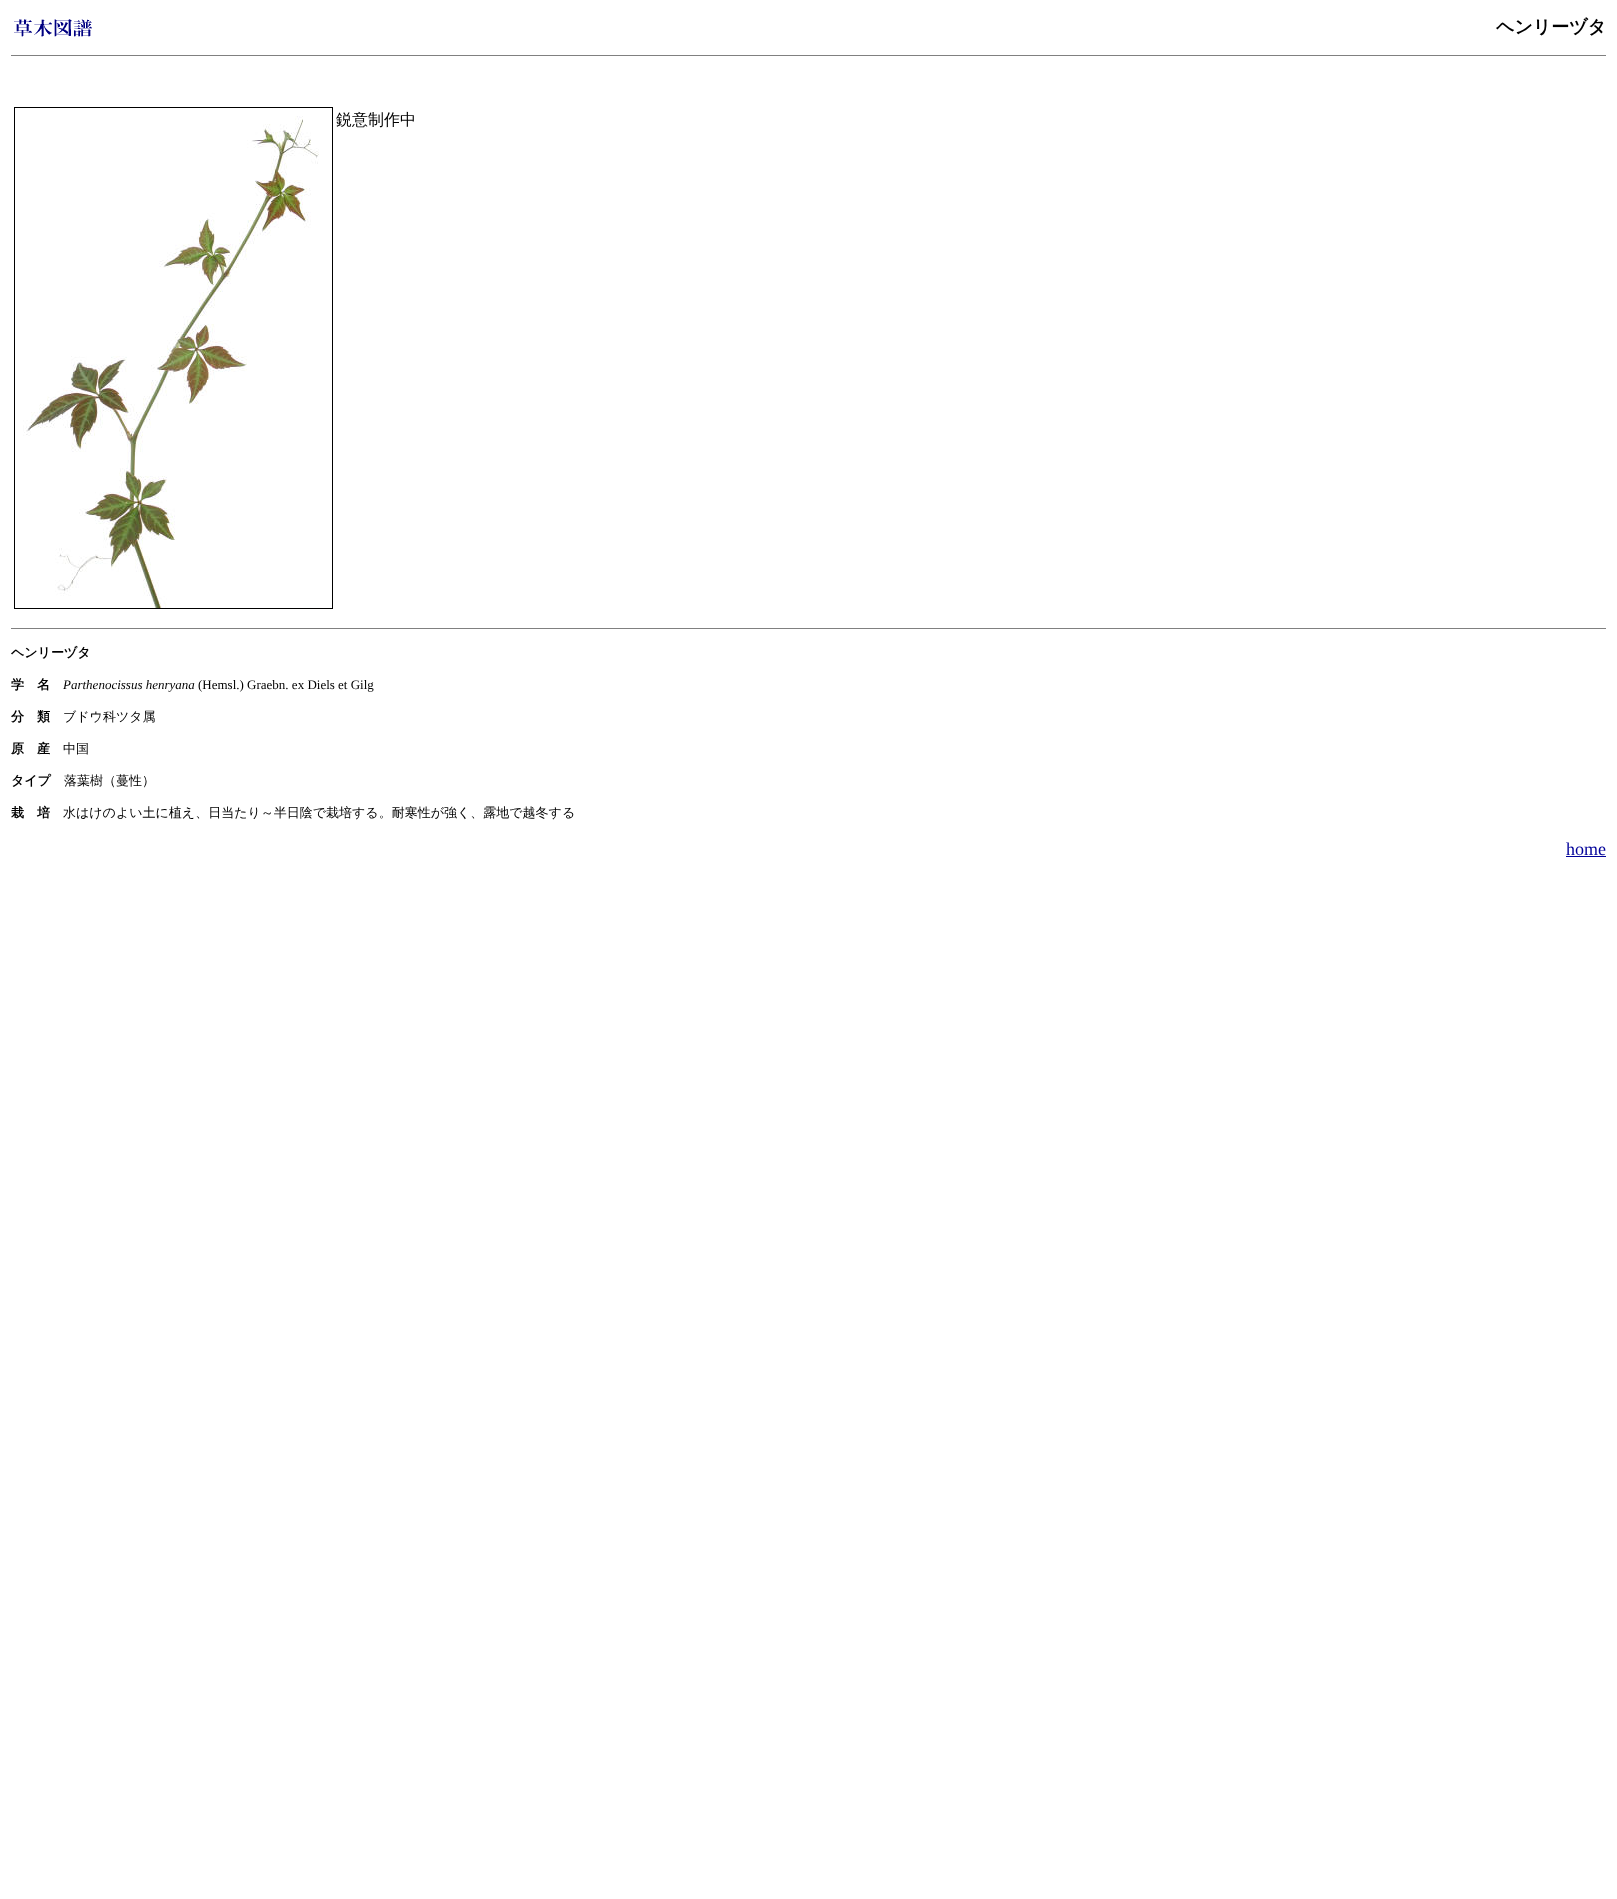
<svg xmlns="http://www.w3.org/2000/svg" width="1617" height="1899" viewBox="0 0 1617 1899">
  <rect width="100%" height="100%" fill="rgb(255,255,255)"/>
  <image x="14" y="19" width="78" height="18" href="pic1.png"/>
  <text x="1496" y="33" font-family="WenQuanYi Zen Hei" font-size="18" font-weight="bold" fill="rgb(0,0,0)">ヘンリーヅタ</text>
  <rect x="11" y="55" width="1595" height="1" fill="rgb(128,128,128)"/>
  <rect x="14.5" y="107.5" width="318" height="501" fill="none" stroke="rgb(0,0,0)"/>
  <image x="23" y="116" width="296" height="492" href="pic2.png"/>
  <text x="336" y="125" font-family="WenQuanYi Zen Hei" font-size="16" font-weight="500" fill="rgb(0,0,0)">鋭意制作中</text>
  <rect x="11" y="628" width="1595" height="1" fill="rgb(128,128,128)"/>
  <g font-family="WenQuanYi Zen Hei" font-size="13" font-weight="bold" fill="rgb(0,0,0)">
    <text x="11" y="657">ヘンリーヅタ</text>
    <text x="11" y="689">学　名</text>
  </g>
  <text x="63" y="689" font-family="Liberation Serif" font-size="13" font-style="italic" fill="rgb(0,0,0)">Parthenocissus henryana</text>
  <text x="198" y="689" font-family="Liberation Serif" font-size="13" fill="rgb(0,0,0)">(Hemsl.) Graebn. ex Diels et Gilg</text>
  <text x="11" y="721" font-family="WenQuanYi Zen Hei" font-size="13" font-weight="bold" fill="rgb(0,0,0)">分　類</text>
  <text x="63" y="721" font-family="WenQuanYi Zen Hei" font-size="13" font-weight="500" fill="rgb(0,0,0)">ブドウ科ツタ属</text>
  <text x="11" y="753" font-family="WenQuanYi Zen Hei" font-size="13" font-weight="bold" fill="rgb(0,0,0)">原　産</text>
  <text x="63" y="753" font-family="WenQuanYi Zen Hei" font-size="13" font-weight="500" fill="rgb(0,0,0)">中国</text>
  <text x="11" y="785" font-family="WenQuanYi Zen Hei" font-size="13" font-weight="bold" fill="rgb(0,0,0)">タイプ</text>
  <text x="64" y="785" font-family="WenQuanYi Zen Hei" font-size="13" font-weight="500" fill="rgb(0,0,0)">落葉樹（蔓性）</text>
  <text x="11" y="817" font-family="WenQuanYi Zen Hei" font-size="13" font-weight="bold" fill="rgb(0,0,0)">栽　培</text>
  <text x="63" y="817" font-family="WenQuanYi Zen Hei" font-size="13" font-weight="500" fill="rgb(0,0,0)">水はけのよい土に植え、日当たり～半日陰で栽培する。耐寒性が強く、露地で越冬する</text>
  <text x="1566" y="855" font-family="Liberation Serif" font-size="18" fill="rgb(0,0,153)">home</text>
  <rect x="1566" y="856" width="40" height="1" fill="rgb(0,0,153)"/>
</svg>
